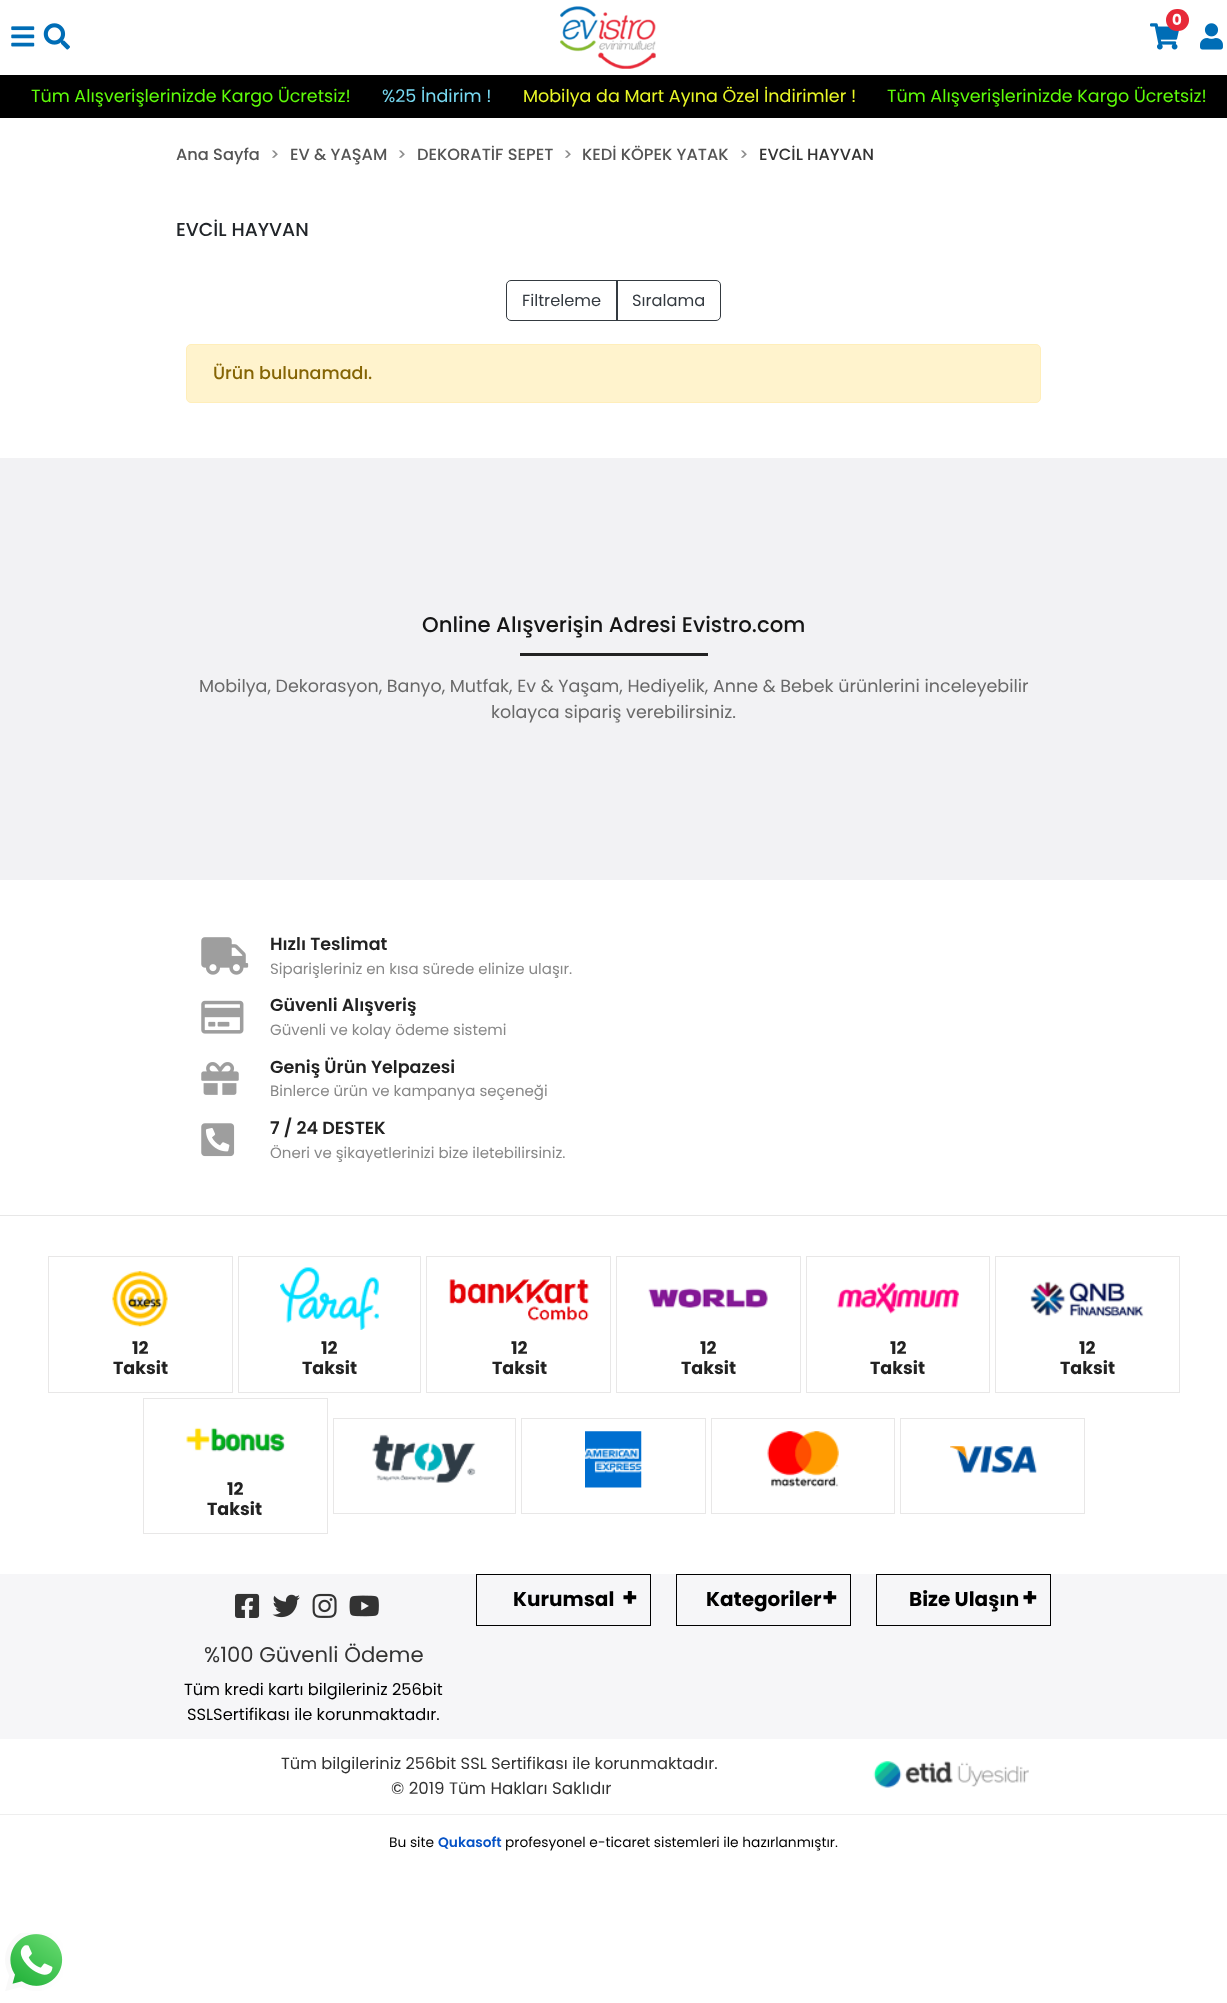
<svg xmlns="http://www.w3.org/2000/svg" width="1227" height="2003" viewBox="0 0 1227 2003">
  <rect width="100%" height="100%" fill="rgb(255,255,255)"/>
  <image x="560" y="6" width="96" height="63" href="pic1.png"/>
  <image x="1150" y="23" width="29" height="27" href="pic2.png"/>
  <rect x="1166" y="9" width="23" height="22" rx="11" fill="rgb(231,41,56)"/>
  <text x="1172" y="25" font-family="Poppins" font-size="15" font-weight="bold" fill="rgb(255,255,255)">0</text>
  <image x="1200" y="23" width="23" height="27" href="pic3.png"/>
  <image x="11" y="26" width="24" height="21" href="pic4.png"/>
  <image x="43" y="23" width="27" height="27" href="pic5.png"/>
  <rect x="0" y="75" width="1227" height="43" fill="rgb(0,0,0)"/>
  <text x="31" y="102" font-family="Poppins" font-size="17.5" fill="rgb(94,251,9)">Tüm Alışverişlerinizde Kargo Ücretsiz!</text>
  <text x="382" y="102" font-family="Poppins" font-size="17.5" fill="rgb(120,218,242)">%25 İndirim !</text>
  <text x="523" y="102" font-family="Poppins" font-size="17.5" fill="rgb(233,247,38)">Mobilya da Mart Ayına Özel İndirimler !</text>
  <text x="887" y="102" font-family="Poppins" font-size="17.5" fill="rgb(94,251,9)">Tüm Alışverişlerinizde Kargo Ücretsiz!</text>
  <text x="176" y="160" font-family="Poppins" font-size="16.25" font-weight="500" fill="rgb(85,85,85)">Ana Sayfa</text>
  <text x="270" y="160" font-family="Poppins" font-size="16.25" font-weight="500" fill="rgb(142,142,142)">&gt;</text>
  <text x="290" y="160" font-family="Poppins" font-size="16.25" font-weight="500" fill="rgb(85,85,85)">EV &amp; YAŞAM</text>
  <text x="397" y="160" font-family="Poppins" font-size="16.25" font-weight="500" fill="rgb(142,142,142)">&gt;</text>
  <text x="417" y="160" font-family="Poppins" font-size="16.25" font-weight="500" fill="rgb(85,85,85)">DEKORATİF SEPET</text>
  <text x="563" y="160" font-family="Poppins" font-size="16.25" font-weight="500" fill="rgb(142,142,142)">&gt;</text>
  <text x="582" y="160" font-family="Poppins" font-size="16.25" font-weight="500" fill="rgb(85,85,85)">KEDİ KÖPEK YATAK</text>
  <text x="739" y="160" font-family="Poppins" font-size="16.25" font-weight="500" fill="rgb(142,142,142)">&gt;</text>
  <text x="759" y="160" font-family="Poppins" font-size="16.25" font-weight="500" fill="rgb(51,51,51)">EVCİL HAYVAN</text>
  <text x="176" y="236" font-family="Poppins" font-size="18.75" font-weight="500" fill="rgb(33,37,41)">EVCİL HAYVAN</text>
  <path d="M511 280.5H617.5V320.5H511C508.5 320.5 506.5 318.5 506.5 316V285C506.5 282.5 508.5 280.5 511 280.5Z" fill="none" stroke="rgb(52,58,64)"/>
  <text x="522" y="306" font-family="Poppins" font-size="16.25" fill="rgb(52,58,64)">Filtreleme</text>
  <path d="M616.5 280.5H716C718.5 280.5 720.5 282.5 720.5 285V316C720.5 318.5 718.5 320.5 716 320.5H616.5Z" fill="none" stroke="rgb(52,58,64)"/>
  <text x="632" y="306" font-family="Poppins" font-size="16.25" fill="rgb(52,58,64)">Sıralama</text>
  <rect x="186.5" y="344.5" width="854" height="58" rx="4.5" fill="rgb(255,243,205)" stroke="rgb(255,238,186)"/>
  <text x="213" y="379" font-family="Poppins" font-size="17.5" font-weight="500" fill="rgb(133,100,4)">Ürün bulunamadı.</text>
  <rect x="0" y="458" width="1227" height="422" fill="rgb(242,242,244)"/>
  <text x="422" y="632" font-family="Poppins" font-size="21.25" font-weight="500" fill="rgb(21,21,21)">Online Alışverişin Adresi Evistro.com</text>
  <rect x="520" y="653" width="188" height="3" fill="rgb(34,34,34)"/>
  <g font-family="Poppins" font-size="17.5" fill="rgb(105,105,105)">
    <text x="199" y="692">Mobilya, Dekorasyon, Banyo, Mutfak, Ev &amp; Yaşam, Hediyelik, Anne &amp; Bebek ürünlerini inceleyebilir</text>
    <text x="491" y="718">kolayca sipariş verebilirsiniz.</text>
  </g>
  <image x="201" y="937" width="48" height="38" href="pic6.png"/>
  <text x="270" y="950" font-family="Poppins" font-size="17.5" font-weight="600" fill="rgb(34,34,34)">Hızlı Teslimat</text>
  <text x="270" y="974" font-family="Poppins" font-size="15" fill="rgb(136,136,136)">Siparişleriniz en kısa sürede elinize ulaşır.</text>
  <image x="201" y="1000" width="43" height="34" href="pic7.png"/>
  <text x="270" y="1011" font-family="Poppins" font-size="17.5" font-weight="600" fill="rgb(34,34,34)">Güvenli Alışveriş</text>
  <text x="270" y="1035" font-family="Poppins" font-size="15" fill="rgb(136,136,136)">Güvenli ve kolay ödeme sistemi</text>
  <image x="201" y="1062" width="38" height="33" href="pic8.png"/>
  <text x="270" y="1073" font-family="Poppins" font-size="17.5" font-weight="600" fill="rgb(34,34,34)">Geniş Ürün Yelpazesi</text>
  <text x="270" y="1096" font-family="Poppins" font-size="15" fill="rgb(136,136,136)">Binlerce ürün ve kampanya seçeneği</text>
  <image x="201" y="1123" width="34" height="34" href="pic9.png"/>
  <text x="270" y="1134" font-family="Poppins" font-size="17.5" font-weight="600" fill="rgb(34,34,34)">7 / 24 DESTEK</text>
  <text x="270" y="1158" font-family="Poppins" font-size="15" fill="rgb(136,136,136)">Öneri ve şikayetlerinizi bize iletebilirsiniz.</text>
  <rect x="0" y="1215" width="1227" height="1" fill="rgb(231,231,231)"/>
  <rect x="48.5" y="1256.5" width="184" height="136" fill="none" stroke="rgb(232,231,231)"/>
  <image x="112" y="1271" width="56" height="56" href="pic10.png"/>
  <g font-family="Poppins" font-size="17.5" font-weight="bold" fill="rgb(34,34,34)">
    <text x="132" y="1354">12</text>
    <text x="113" y="1374">Taksit</text>
  </g>
  <rect x="238.5" y="1256.5" width="182" height="136" fill="none" stroke="rgb(232,231,231)"/>
  <image x="280" y="1267" width="99" height="63" href="pic11.png"/>
  <g font-family="Poppins" font-size="17.5" font-weight="bold" fill="rgb(34,34,34)">
    <text x="321" y="1354">12</text>
    <text x="302" y="1374">Taksit</text>
  </g>
  <rect x="426.5" y="1256.5" width="184" height="136" fill="none" stroke="rgb(232,231,231)"/>
  <image x="449" y="1279" width="140" height="42" href="pic12.png"/>
  <g font-family="Poppins" font-size="17.5" font-weight="bold" fill="rgb(34,34,34)">
    <text x="511" y="1354">12</text>
    <text x="492" y="1374">Taksit</text>
  </g>
  <rect x="616.5" y="1256.5" width="184" height="136" fill="none" stroke="rgb(232,231,231)"/>
  <image x="648" y="1288" width="120" height="20" href="pic13.png"/>
  <g font-family="Poppins" font-size="17.5" font-weight="bold" fill="rgb(34,34,34)">
    <text x="700" y="1354">12</text>
    <text x="681" y="1374">Taksit</text>
  </g>
  <rect x="806.5" y="1256.5" width="183" height="136" fill="none" stroke="rgb(232,231,231)"/>
  <image x="837" y="1282" width="122" height="32" href="pic14.png"/>
  <g font-family="Poppins" font-size="17.5" font-weight="bold" fill="rgb(34,34,34)">
    <text x="890" y="1354">12</text>
    <text x="870" y="1374">Taksit</text>
  </g>
  <rect x="995.5" y="1256.5" width="184" height="136" fill="none" stroke="rgb(232,231,231)"/>
  <image x="1030" y="1281" width="114" height="36" href="pic15.png"/>
  <g font-family="Poppins" font-size="17.5" font-weight="bold" fill="rgb(34,34,34)">
    <text x="1079" y="1354">12</text>
    <text x="1060" y="1374">Taksit</text>
  </g>
  <rect x="143.5" y="1398.5" width="184" height="135" fill="none" stroke="rgb(232,231,231)"/>
  <image x="186" y="1427" width="99" height="25" href="pic16.png"/>
  <g font-family="Poppins" font-size="17.5" font-weight="bold" fill="rgb(34,34,34)">
    <text x="227" y="1495">12</text>
    <text x="207" y="1515">Taksit</text>
  </g>
  <rect x="333.5" y="1418.5" width="182" height="95" fill="none" stroke="rgb(232,231,231)"/>
  <image x="372" y="1434" width="104" height="49" href="pic17.png"/>
  <rect x="521.5" y="1418.5" width="184" height="95" fill="none" stroke="rgb(232,231,231)"/>
  <image x="585" y="1431" width="57" height="57" href="pic18.png"/>
  <rect x="711.5" y="1418.5" width="183" height="95" fill="none" stroke="rgb(232,231,231)"/>
  <image x="767" y="1431" width="72" height="56" href="pic19.png"/>
  <rect x="900.5" y="1418.5" width="184" height="95" fill="none" stroke="rgb(232,231,231)"/>
  <image x="950" y="1446" width="87" height="27" href="pic20.png"/>
  <rect x="0" y="1574" width="1227" height="165" fill="rgb(246,246,248)"/>
  <rect x="476.5" y="1574.5" width="174" height="51" fill="none" stroke="rgb(0,0,0)"/>
  <text x="513" y="1606" font-family="Poppins" font-size="20" font-weight="bold" fill="rgb(0,0,0)">Kurumsal</text>
  <text x="622" y="1606" font-family="Poppins" font-size="25" font-weight="bold" fill="rgb(0,0,0)">+</text>
  <rect x="676.5" y="1574.5" width="174" height="51" fill="none" stroke="rgb(0,0,0)"/>
  <text x="706" y="1606" font-family="Poppins" font-size="20" font-weight="bold" fill="rgb(0,0,0)">Kategoriler</text>
  <text x="822" y="1606" font-family="Poppins" font-size="25" font-weight="bold" fill="rgb(0,0,0)">+</text>
  <rect x="876.5" y="1574.5" width="174" height="51" fill="none" stroke="rgb(0,0,0)"/>
  <text x="909" y="1606" font-family="Poppins" font-size="20" font-weight="bold" fill="rgb(0,0,0)">Bize Ulaşın</text>
  <text x="1022" y="1606" font-family="Poppins" font-size="25" font-weight="bold" fill="rgb(0,0,0)">+</text>
  <image x="235" y="1593" width="25" height="25" href="pic21.png"/>
  <image x="272" y="1594" width="28" height="24" href="pic22.png"/>
  <image x="312" y="1593" width="25" height="25" href="pic23.png"/>
  <image x="349" y="1595" width="30" height="22" href="pic24.png"/>
  <text x="204" y="1662" font-family="Poppins" font-size="21.25" fill="rgb(51,51,51)">%100 Güvenli Ödeme</text>
  <g font-family="Poppins" font-size="16.25" fill="rgb(0,0,0)">
    <text x="184" y="1695">Tüm kredi kartı bilgileriniz 256bit</text>
    <text x="187" y="1720">SSLSertifikası ile korunmaktadır.</text>
  </g>
  <text x="281" y="1769" font-family="Poppins" font-size="16.25" fill="rgb(51,51,51)">Tüm bilgileriniz 256bit SSL Sertifikası ile korunmaktadır.</text>
  <text x="391" y="1794" font-family="Poppins" font-size="16.7" fill="rgb(51,51,51)">© 2019 Tüm Hakları Saklıdır</text>
  <image x="873" y="1761" width="156" height="27" href="pic25.png"/>
  <rect x="0" y="1814" width="1227" height="1" fill="rgb(238,238,238)"/>
  <text x="389" y="1847" font-family="Poppins" font-size="13.75" fill="rgb(0,0,0)">Bu site</text>
  <text x="438" y="1847" font-family="Poppins" font-size="13.75" font-weight="600" fill="rgb(5,82,198)">Qukasoft</text>
  <text x="505" y="1847" font-family="Poppins" font-size="13.75" fill="rgb(0,0,0)">profesyonel e-ticaret sistemleri ile hazırlanmıştır.</text>
  <image x="5" y="1933" width="58" height="58" href="pic26.png"/>
</svg>
